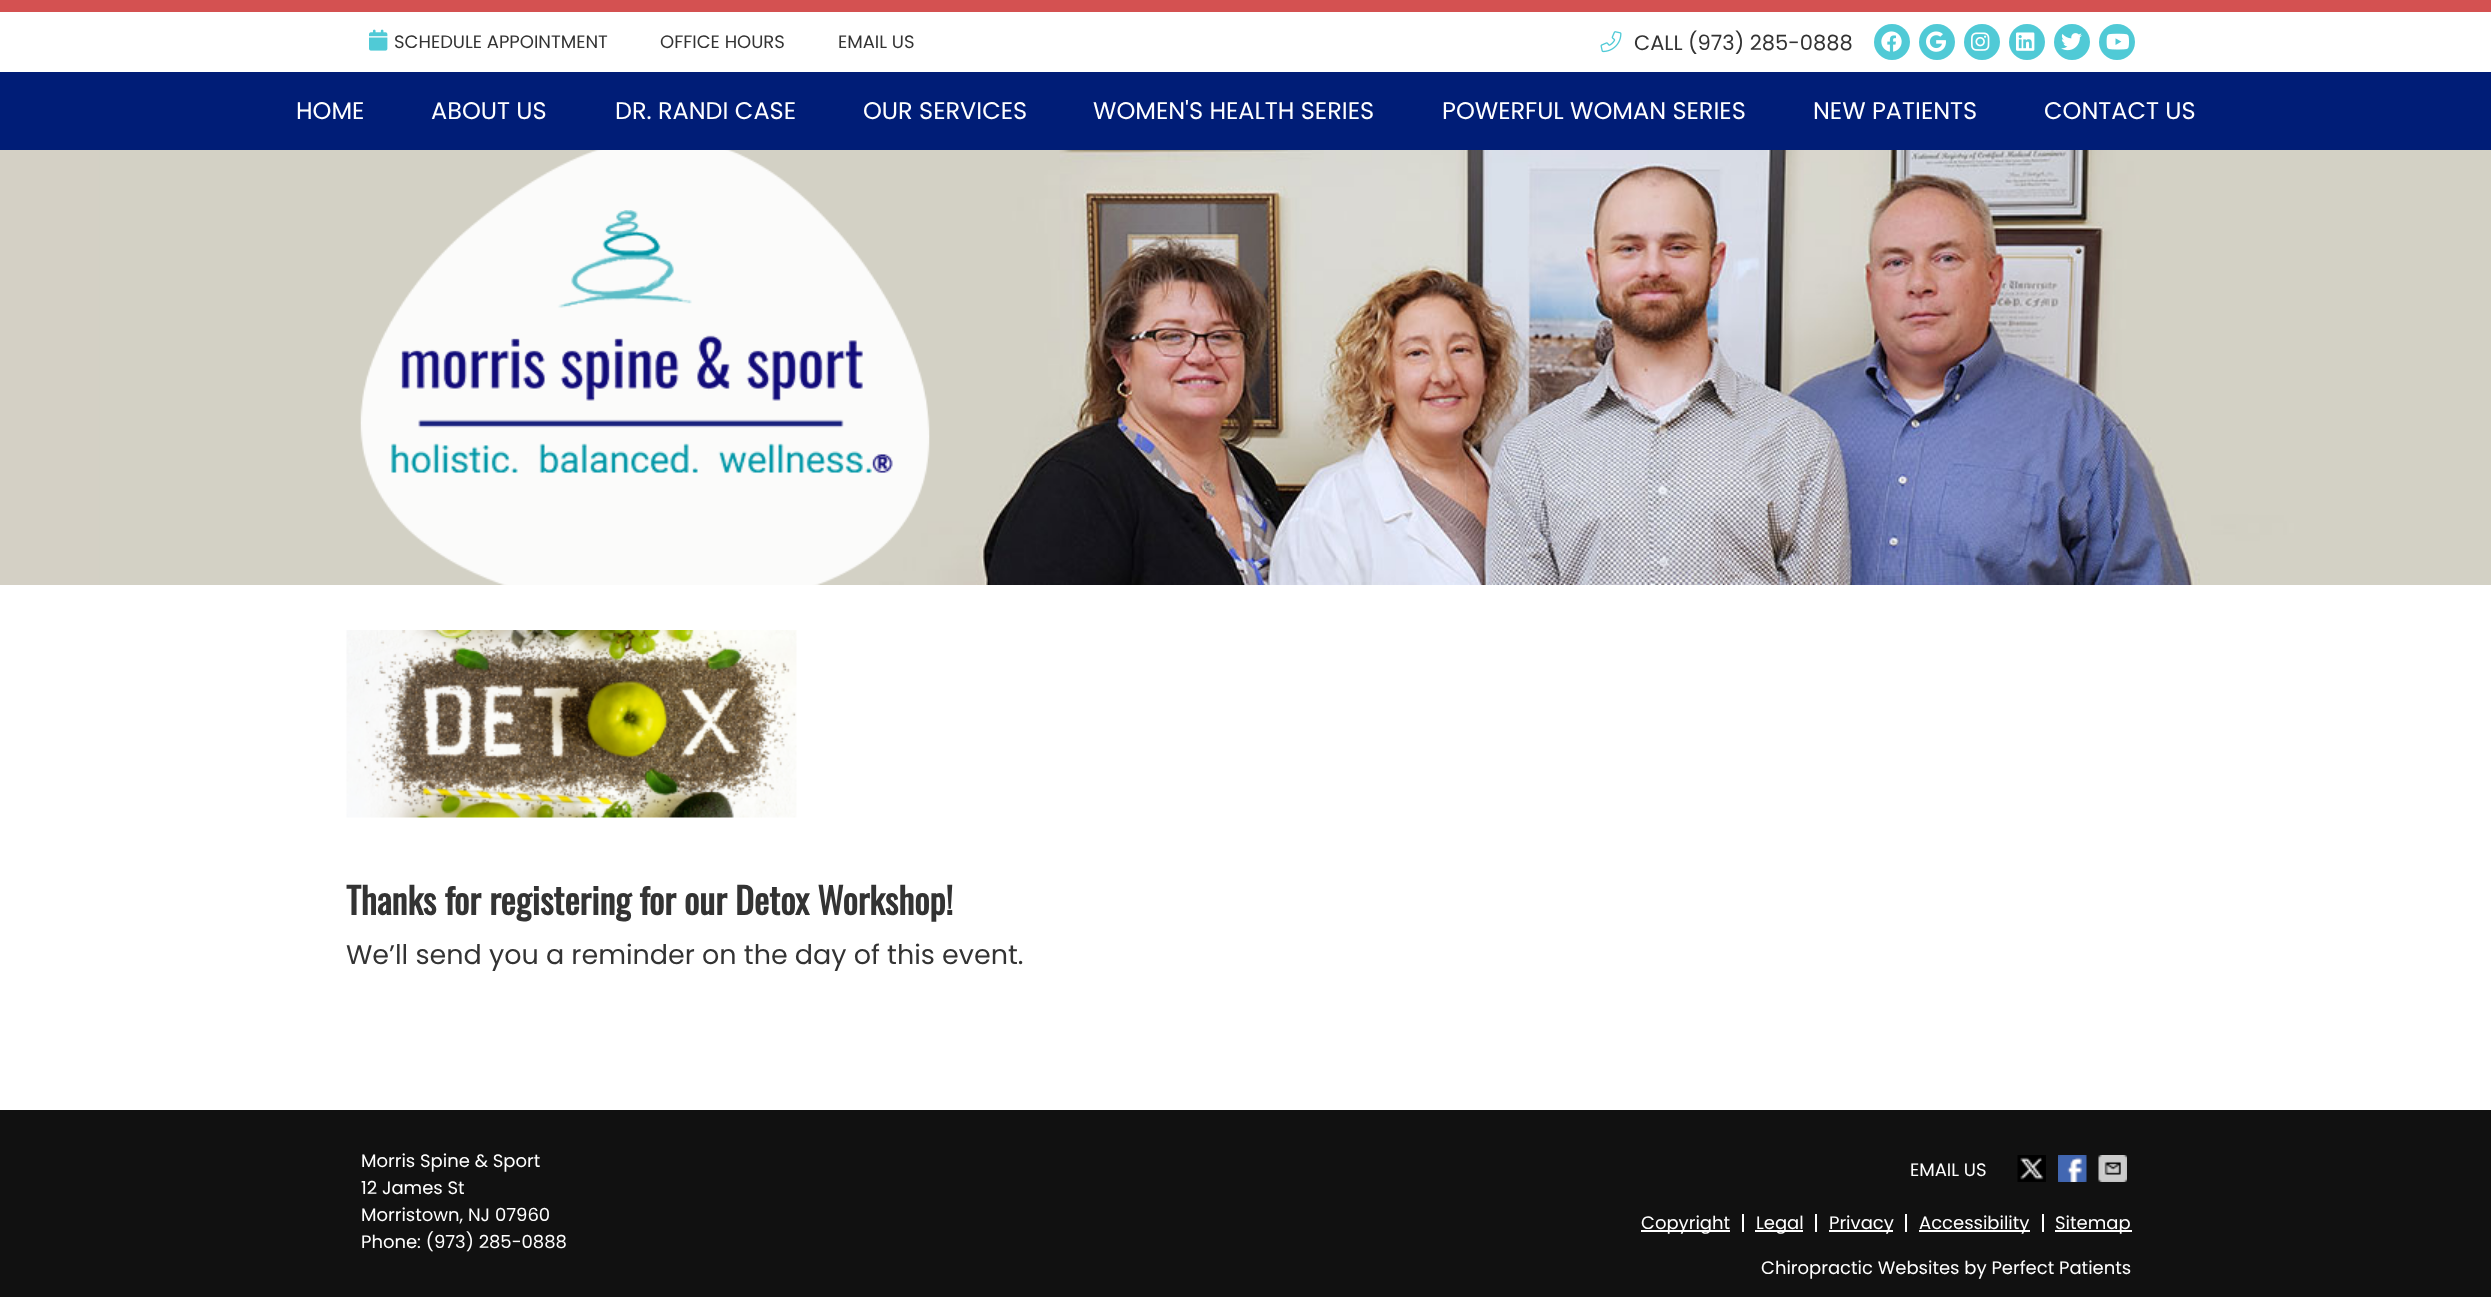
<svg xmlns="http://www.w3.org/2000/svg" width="2491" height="1297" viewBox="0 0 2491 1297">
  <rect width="100%" height="100%" fill="rgb(255,255,255)"/>
  <rect x="0" y="0" width="2491" height="12" fill="rgb(212,81,81)"/>
  <image x="369" y="29" width="19" height="22" href="pic1.png"/>
  <g font-family="Poppins" font-size="18" fill="rgb(51,51,51)">
    <text x="394" y="48">SCHEDULE APPOINTMENT</text>
    <text x="660" y="48">OFFICE HOURS</text>
    <text x="838" y="48">EMAIL US</text>
  </g>
  <image x="1600" y="31" width="22" height="22" href="pic2.png"/>
  <text x="1634" y="50" font-family="Poppins" font-size="21" fill="rgb(51,51,51)">CALL (973) 285-0888</text>
  <circle cx="1892" cy="42" r="18" fill="rgb(80,202,214)"/>
  <image x="1881" y="31" width="21" height="21" href="pic3.png"/>
  <circle cx="1937" cy="42" r="18" fill="rgb(80,202,214)"/>
  <image x="1926" y="31" width="20" height="21" href="pic4.png"/>
  <circle cx="1982" cy="42" r="18" fill="rgb(80,202,214)"/>
  <image x="1971" y="32" width="19" height="19" href="pic5.png"/>
  <circle cx="2027" cy="42" r="18" fill="rgb(80,202,214)"/>
  <image x="2016" y="32" width="19" height="19" href="pic6.png"/>
  <circle cx="2072" cy="42" r="18" fill="rgb(80,202,214)"/>
  <image x="2061" y="33" width="21" height="18" href="pic7.png"/>
  <circle cx="2117" cy="42" r="18" fill="rgb(80,202,214)"/>
  <image x="2106" y="33" width="23" height="17" href="pic8.png"/>
  <rect x="0" y="72" width="2491" height="78" fill="rgb(0,29,119)"/>
  <g font-family="Poppins" font-size="24" fill="rgb(255,255,255)">
    <text x="296" y="119">HOME</text>
    <text x="431" y="119">ABOUT US</text>
    <text x="615" y="119">DR. RANDI CASE</text>
    <text x="863" y="119">OUR SERVICES</text>
    <text x="1093" y="119">WOMEN'S HEALTH SERIES</text>
    <text x="1442" y="119">POWERFUL WOMAN SERIES</text>
    <text x="1813" y="119">NEW PATIENTS</text>
    <text x="2044" y="119">CONTACT US</text>
  </g>
  <image x="0" y="150" width="2491" height="435" href="pic9.png"/>
  <image x="360" y="150" width="570" height="435" href="pic10.png"/>
  <image x="391" y="210" width="502" height="263" href="pic11.png"/>
  <image x="346" y="630" width="451" height="188" href="pic12.png"/>
  <text x="346" y="915" font-family="Oswald" font-size="36" font-weight="bold" fill="rgb(51,51,51)">Thanks for registering for our Detox Workshop!</text>
  <text x="346" y="964" font-family="Poppins" font-size="27" fill="rgb(51,51,51)">We’ll send you a reminder on the day of this event.</text>
  <rect x="0" y="1110" width="2491" height="187" fill="rgb(17,17,17)"/>
  <g font-family="Poppins" font-size="18" fill="rgb(255,255,255)">
    <text>
      <tspan x="361" y="1167">Morris Spine &amp; Sport</tspan>
      <tspan x="361" y="1194">12 James St</tspan>
      <tspan x="361" y="1221">Morristown, NJ 07960</tspan>
      <tspan x="361" y="1248">Phone: (973) 285-0888</tspan>
    </text>
    <text x="1910" y="1176">EMAIL US</text>
  </g>
  <image x="2017" y="1155" width="29" height="27" href="pic13.png"/>
  <image x="2058" y="1155" width="29" height="27" href="pic14.png"/>
  <image x="2098" y="1155" width="29" height="27" href="pic15.png"/>
  <rect x="1641" y="1230" width="89" height="2" fill="rgb(255,255,255)"/>
  <text x="1641" y="1229" font-family="Poppins" font-size="18" fill="rgb(255,255,255)">Copyright</text>
  <rect x="1742" y="1214" width="2" height="18" fill="rgb(255,255,255)"/>
  <rect x="1755" y="1230" width="48" height="2" fill="rgb(255,255,255)"/>
  <text x="1756" y="1229" font-family="Poppins" font-size="18" fill="rgb(255,255,255)">Legal</text>
  <rect x="1815" y="1214" width="2" height="18" fill="rgb(255,255,255)"/>
  <rect x="1829" y="1230" width="64" height="2" fill="rgb(255,255,255)"/>
  <text x="1829" y="1229" font-family="Poppins" font-size="18" fill="rgb(255,255,255)">Privacy</text>
  <rect x="1905" y="1214" width="2" height="18" fill="rgb(255,255,255)"/>
  <rect x="1919" y="1230" width="111" height="2" fill="rgb(255,255,255)"/>
  <text x="1919" y="1229" font-family="Poppins" font-size="18" fill="rgb(255,255,255)">Accessibility</text>
  <rect x="2042" y="1214" width="2" height="18" fill="rgb(255,255,255)"/>
  <rect x="2055" y="1230" width="77" height="2" fill="rgb(255,255,255)"/>
  <g font-family="Poppins" font-size="18" fill="rgb(255,255,255)">
    <text x="2055" y="1229">Sitemap</text>
    <text x="1761" y="1274">Chiropractic Websites by Perfect Patients</text>
  </g>
</svg>
